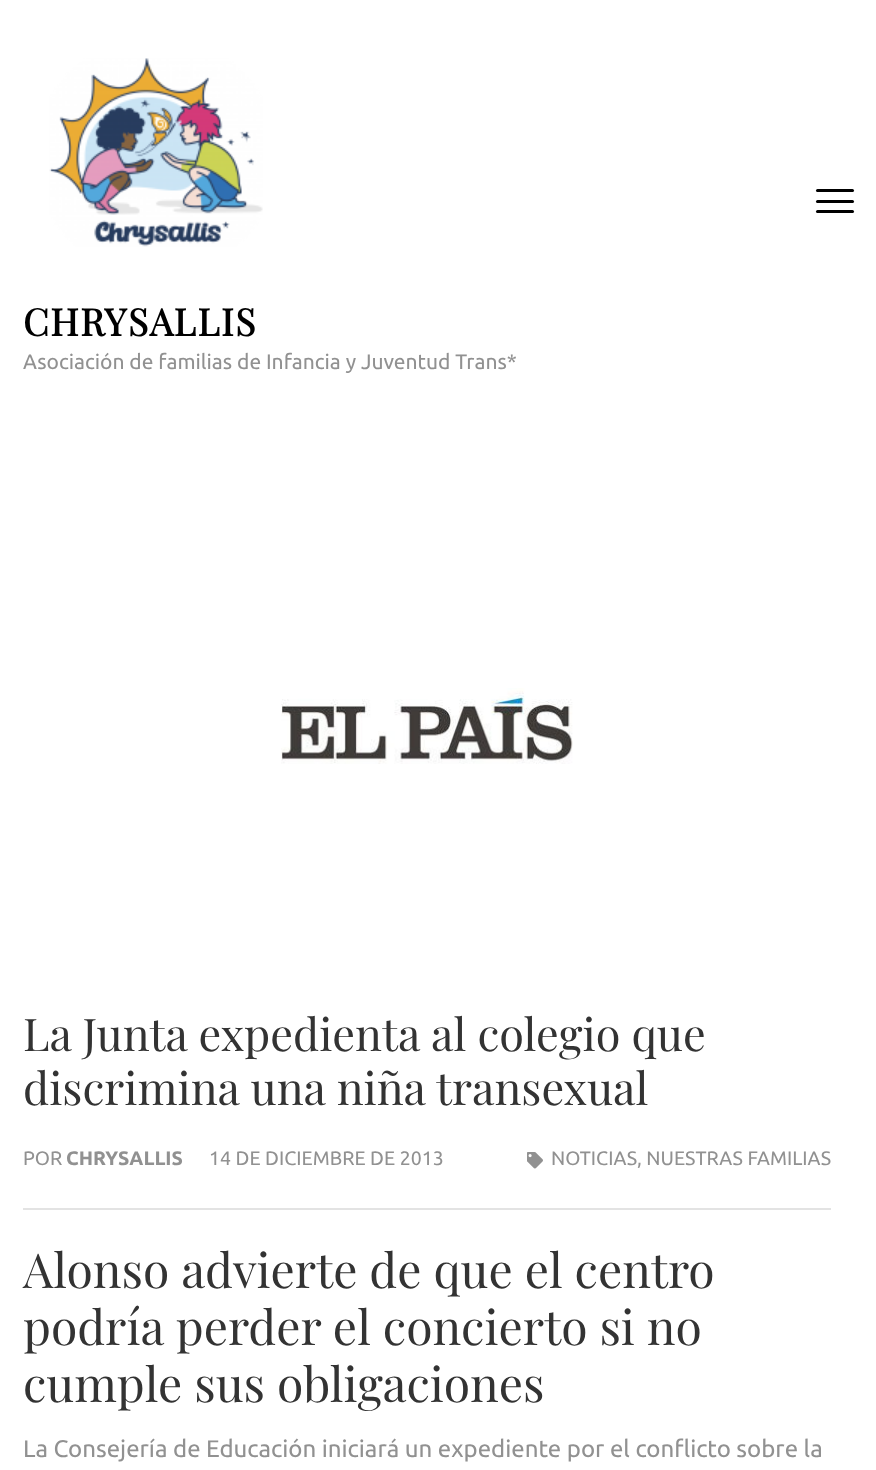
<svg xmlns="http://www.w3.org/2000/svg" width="876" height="1470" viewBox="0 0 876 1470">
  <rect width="100%" height="100%" fill="rgb(255,255,255)"/>
  <rect x="816" y="189" width="38" height="3" rx="1.5" fill="rgb(0,0,0)"/>
  <rect x="816" y="200" width="38" height="3" rx="1.5" fill="rgb(0,0,0)"/>
  <rect x="816" y="210" width="38" height="3" rx="1.5" fill="rgb(0,0,0)"/>
  <image x="49" y="58" width="214" height="189" href="pic1.png"/>
  <text x="23" y="336" font-family="Playfair Display" font-size="37.5" font-weight="bold" letter-spacing="1.5" fill="rgb(0,0,0)">CHRYSALLIS</text>
  <text x="23" y="369" font-family="Ubuntu" font-size="21" fill="rgb(145,145,145)">Asociación de familias de Infancia y Juventud Trans*</text>
  <image x="281" y="688" width="292" height="76" href="pic2.png"/>
  <rect x="23" y="1208" width="808" height="2" fill="rgb(227,227,227)"/>
  <g font-family="Playfair Display" font-size="45" fill="rgb(51,51,51)">
    <text>
      <tspan x="23" y="1051">La Junta expedienta al colegio que</tspan>
      <tspan x="23" y="1105">discrimina una niña transexual</tspan>
    </text>
  </g>
  <text x="23" y="1165" font-family="Ubuntu" font-size="19.5" fill="rgb(145,145,145)">POR</text>
  <text x="66" y="1165" font-family="Ubuntu" font-size="19.5" font-weight="bold" fill="rgb(145,145,145)">CHRYSALLIS</text>
  <text x="209" y="1165" font-family="Ubuntu" font-size="19.5" fill="rgb(145,145,145)">14 DE DICIEMBRE DE 2013</text>
  <image x="527" y="1152" width="16" height="17" href="pic3.png"/>
  <text x="551" y="1165" font-family="Ubuntu" font-size="19.5" fill="rgb(145,145,145)">NOTICIAS, NUESTRAS FAMILIAS</text>
  <g font-family="Playfair Display" font-size="48" fill="rgb(51,51,51)">
    <text>
      <tspan x="23" y="1288">Alonso advierte de que el centro</tspan>
      <tspan x="23" y="1345">podría perder el concierto si no</tspan>
      <tspan x="23" y="1402">cumple sus obligaciones</tspan>
    </text>
  </g>
  <text x="23" y="1457" font-family="Ubuntu" font-size="24" fill="rgb(145,145,145)">La Consejería de Educación iniciará un expediente por el conflicto sobre la</text>
</svg>
